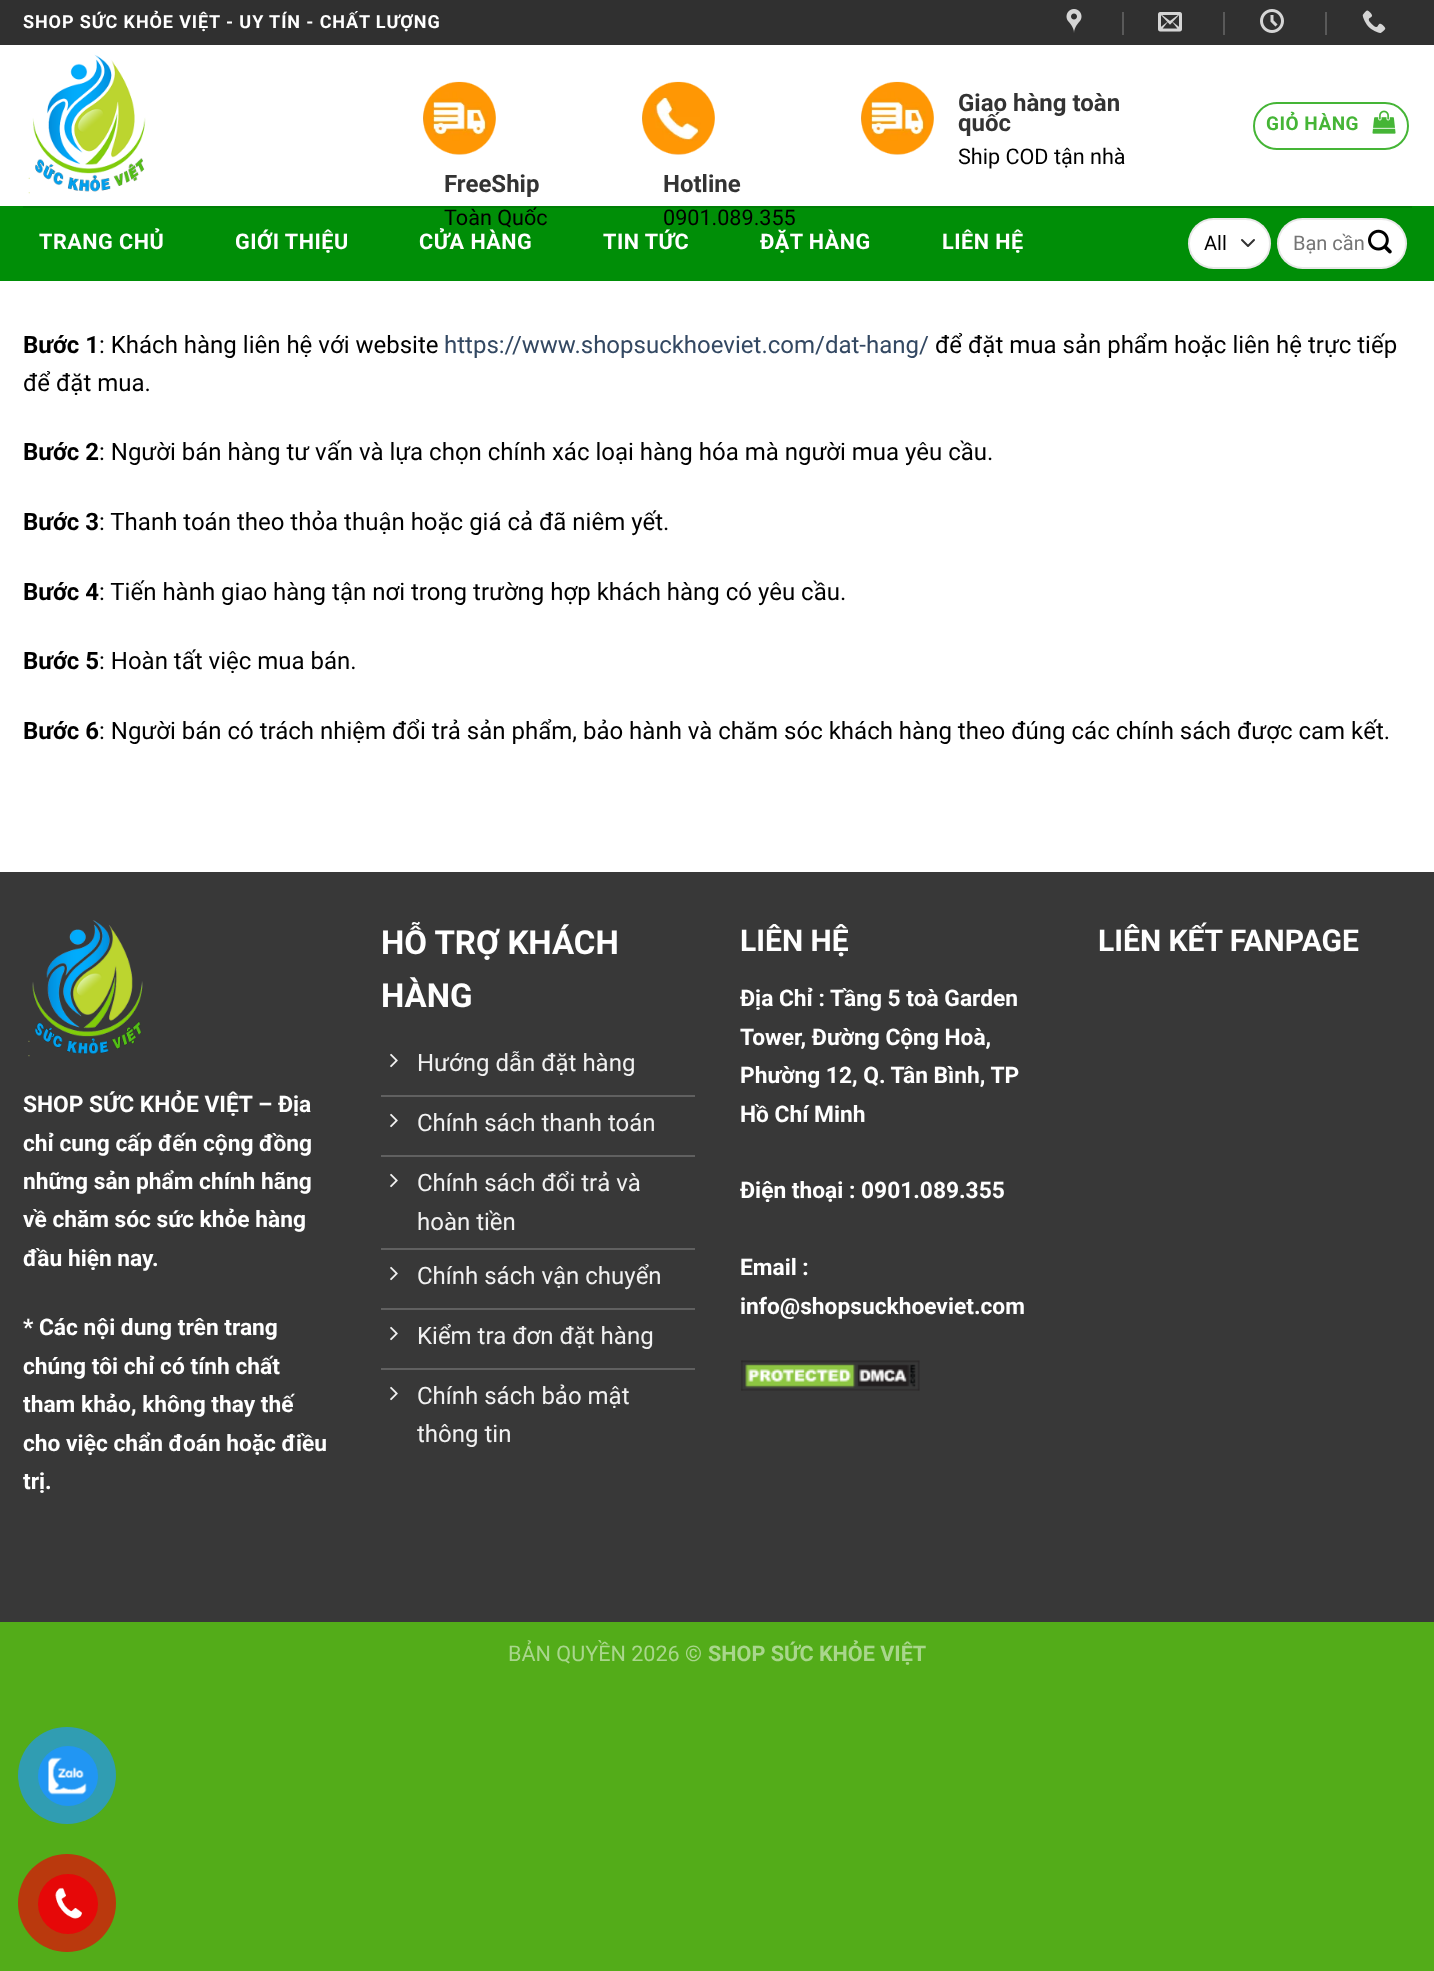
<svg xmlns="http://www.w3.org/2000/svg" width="1434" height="1971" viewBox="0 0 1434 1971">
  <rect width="100%" height="100%" fill="rgb(83,172,25)"/>
  <rect x="0" y="45" width="1434" height="827" fill="rgb(255,255,255)"/>
  <rect x="0" y="0" width="1434" height="45" fill="rgb(48,48,48)"/>
  <text x="23" y="28" font-family="Roboto" font-size="18" font-weight="bold" letter-spacing="0.9" fill="rgb(255,255,255)">SHOP SỨC KHỎE VIỆT - UY TÍN - CHẤT LƯỢNG</text>
  <image x="1066" y="9" width="16" height="24" href="pic1.png"/>
  <rect x="1122" y="12" width="2" height="23" fill="rgb(89,89,89)"/>
  <image x="1158" y="12" width="24" height="20" href="pic2.png"/>
  <rect x="1223" y="12" width="2" height="23" fill="rgb(89,89,89)"/>
  <image x="1260" y="9" width="24" height="24" href="pic3.png"/>
  <rect x="1325" y="12" width="2" height="23" fill="rgb(89,89,89)"/>
  <image x="1362" y="10" width="24" height="23" href="pic4.png"/>
  <image x="28" y="54" width="118" height="140" href="pic5.png"/>
  <image x="861" y="81" width="73" height="74" href="pic6.png"/>
  <g font-family="Roboto" font-size="24" font-weight="bold" fill="rgb(51,51,51)">
    <text>
      <tspan x="958" y="111">Giao hàng toàn</tspan>
      <tspan x="958" y="131">quốc</tspan>
    </text>
  </g>
  <text x="958" y="164" font-family="Roboto" font-size="21.6" fill="rgb(0,0,0)">Ship COD tận nhà</text>
  <image x="423" y="81" width="73" height="74" href="pic6.png"/>
  <text x="444" y="192" font-family="Roboto" font-size="24" font-weight="bold" fill="rgb(51,51,51)">FreeShip</text>
  <rect x="0" y="206" width="1434" height="75" fill="rgb(0,142,7)"/>
  <text x="444" y="225" font-family="Roboto" font-size="21.6" fill="rgb(0,0,0)">Toàn Quốc</text>
  <image x="642" y="81" width="73" height="74" href="pic7.png"/>
  <text x="663" y="192" font-family="Roboto" font-size="24" font-weight="bold" fill="rgb(51,51,51)">Hotline</text>
  <text x="663" y="225" font-family="Roboto" font-size="21.6" fill="rgb(0,0,0)">0901.089.355</text>
  <rect x="1254" y="103" width="154" height="46" rx="23" fill="none" stroke="rgb(69,181,54)" stroke-width="2"/>
  <text x="1266" y="130" font-family="Roboto" font-size="19" font-weight="bold" letter-spacing="0.5" fill="rgb(69,181,54)">GIỎ HÀNG</text>
  <image x="1372" y="110" width="24" height="24" href="pic8.png"/>
  <rect x="23" y="206" width="1389" height="2" fill="rgba(0,0,0,0.1)"/>
  <g font-family="Roboto" font-size="21.6" font-weight="bold" letter-spacing="0.5" fill="rgb(255,255,255)">
    <text x="39" y="249">TRANG CHỦ</text>
    <text x="235" y="249">GIỚI THIỆU</text>
    <text x="419" y="249">CỬA HÀNG</text>
    <text x="603" y="249">TIN TỨC</text>
    <text x="760" y="249">ĐẶT HÀNG</text>
    <text x="942" y="249">LIÊN HỆ</text>
  </g>
  <rect x="1188" y="218" width="83" height="51" rx="25.5" fill="rgb(255,255,255)"/>
  <path d="M1242 240L1248 246L1254 240" fill="none" stroke="rgb(51,51,51)" stroke-width="2" stroke-linecap="round" stroke-linejoin="round"/>
  <rect x="1189" y="219" width="81" height="49" rx="24.5" fill="none" stroke="rgba(0,0,0,0.09)" stroke-width="2"/>
  <text x="1204" y="250" font-family="Roboto" font-size="20" fill="rgb(0,0,0)">All</text>
  <rect x="1277" y="218" width="130" height="51" rx="25.5" fill="rgb(255,255,255)"/>
  <rect x="1278" y="219" width="128" height="49" rx="24.5" fill="none" stroke="rgba(0,0,0,0.09)" stroke-width="2"/>
  <text x="1293" y="250" font-family="Roboto" font-size="20" fill="rgb(117,117,117)">Bạn cần</text>
  <image x="1368" y="229" width="24" height="25" href="pic9.png"/>
  <text x="23" y="353" font-family="Roboto" font-size="24" font-weight="bold" fill="rgb(0,0,0)">Bước 1</text>
  <text x="99" y="353" font-family="Roboto" font-size="24" fill="rgb(0,0,0)">: Khách hàng liên hệ với website</text>
  <text x="444" y="353" font-family="Roboto" font-size="24" fill="rgb(51,72,98)">https://www.shopsuckhoeviet.com/dat-hang/</text>
  <g font-family="Roboto" font-size="24" fill="rgb(0,0,0)">
    <text x="935" y="353">để đặt mua sản phẩm hoặc liên hệ trực tiếp</text>
    <text x="23" y="391">để đặt mua.</text>
  </g>
  <text x="23" y="460" font-family="Roboto" font-size="24" font-weight="bold" fill="rgb(0,0,0)">Bước 2</text>
  <text x="99" y="460" font-family="Roboto" font-size="24" fill="rgb(0,0,0)">: Người bán hàng tư vấn và lựa chọn chính xác loại hàng hóa mà người mua yêu cầu.</text>
  <text x="23" y="530" font-family="Roboto" font-size="24" font-weight="bold" fill="rgb(0,0,0)">Bước 3</text>
  <text x="99" y="530" font-family="Roboto" font-size="24" fill="rgb(0,0,0)">: Thanh toán theo thỏa thuận hoặc giá cả đã niêm yết.</text>
  <text x="23" y="600" font-family="Roboto" font-size="24" font-weight="bold" fill="rgb(0,0,0)">Bước 4</text>
  <text x="99" y="600" font-family="Roboto" font-size="24" fill="rgb(0,0,0)">: Tiến hành giao hàng tận nơi trong trường hợp khách hàng có yêu cầu.</text>
  <text x="23" y="669" font-family="Roboto" font-size="24" font-weight="bold" fill="rgb(0,0,0)">Bước 5</text>
  <text x="99" y="669" font-family="Roboto" font-size="24" fill="rgb(0,0,0)">: Hoàn tất việc mua bán.</text>
  <text x="23" y="739" font-family="Roboto" font-size="24" font-weight="bold" fill="rgb(0,0,0)">Bước 6</text>
  <text x="99" y="739" font-family="Roboto" font-size="24" fill="rgb(0,0,0)">: Người bán có trách nhiệm đổi trả sản phẩm, bảo hành và chăm sóc khách hàng theo đúng các chính sách được cam kết.</text>
  <rect x="0" y="872" width="1434" height="750" fill="rgb(56,56,56)"/>
  <image x="28" y="920" width="115" height="137" href="pic10.png"/>
  <g font-family="Roboto" font-size="22.75" font-weight="bold" fill="rgb(255,255,255)">
    <text>
      <tspan x="23" y="1112">SHOP SỨC KHỎE VIỆT – Địa</tspan>
      <tspan x="23" y="1151">chỉ cung cấp đến cộng đồng</tspan>
      <tspan x="23" y="1189">những sản phẩm chính hãng</tspan>
      <tspan x="23" y="1227">về chăm sóc sức khỏe hàng</tspan>
      <tspan x="23" y="1266">đầu hiện nay.</tspan>
    </text>
    <text>
      <tspan x="23" y="1335">* Các nội dung trên trang</tspan>
      <tspan x="23" y="1374">chúng tôi chỉ có tính chất</tspan>
      <tspan x="23" y="1412">tham khảo, không thay thế</tspan>
      <tspan x="23" y="1451">cho việc chẩn đoán hoặc điều</tspan>
      <tspan x="23" y="1489">trị.</tspan>
    </text>
  </g>
  <g font-family="Roboto" font-size="33" font-weight="bold" fill="rgb(255,255,255)">
    <text>
      <tspan x="381" y="954">HỖ TRỢ KHÁCH</tspan>
      <tspan x="381" y="1007">HÀNG</tspan>
    </text>
  </g>
  <rect x="381" y="1095" width="314" height="2" fill="rgb(96,96,96)"/>
  <image x="390" y="1053" width="8" height="15" href="pic11.png"/>
  <text x="417" y="1071" font-family="Roboto" font-size="24" fill="rgb(241,241,241)">Hướng dẫn đặt hàng</text>
  <rect x="381" y="1155" width="314" height="2" fill="rgb(96,96,96)"/>
  <image x="390" y="1113" width="8" height="15" href="pic11.png"/>
  <text x="417" y="1131" font-family="Roboto" font-size="24" fill="rgb(241,241,241)">Chính sách thanh toán</text>
  <rect x="381" y="1248" width="314" height="2" fill="rgb(96,96,96)"/>
  <image x="390" y="1173" width="8" height="15" href="pic11.png"/>
  <g font-family="Roboto" font-size="24" fill="rgb(241,241,241)">
    <text>
      <tspan x="417" y="1191">Chính sách đổi trả và</tspan>
      <tspan x="417" y="1230">hoàn tiền</tspan>
    </text>
  </g>
  <rect x="381" y="1308" width="314" height="2" fill="rgb(96,96,96)"/>
  <image x="390" y="1266" width="8" height="15" href="pic11.png"/>
  <text x="417" y="1284" font-family="Roboto" font-size="24" fill="rgb(241,241,241)">Chính sách vận chuyển</text>
  <rect x="381" y="1368" width="314" height="2" fill="rgb(96,96,96)"/>
  <image x="390" y="1326" width="8" height="15" href="pic11.png"/>
  <text x="417" y="1344" font-family="Roboto" font-size="24" fill="rgb(241,241,241)">Kiểm tra đơn đặt hàng</text>
  <image x="390" y="1386" width="8" height="15" href="pic11.png"/>
  <g font-family="Roboto" font-size="24" fill="rgb(241,241,241)">
    <text>
      <tspan x="417" y="1404">Chính sách bảo mật</tspan>
      <tspan x="417" y="1442">thông tin</tspan>
    </text>
  </g>
  <text x="740" y="951" font-family="Roboto" font-size="30" font-weight="bold" fill="rgb(255,255,255)">LIÊN HỆ</text>
  <g font-family="Roboto" font-size="22.75" font-weight="bold" fill="rgb(255,255,255)">
    <text>
      <tspan x="740" y="1006">Địa Chỉ : Tầng 5 toà Garden</tspan>
      <tspan x="740" y="1045">Tower, Đường Cộng Hoà,</tspan>
      <tspan x="740" y="1083">Phường 12, Q. Tân Bình, TP</tspan>
      <tspan x="740" y="1122">Hồ Chí Minh</tspan>
    </text>
    <text x="740" y="1198">Điện thoại : 0901.089.355</text>
    <text>
      <tspan x="740" y="1275">Email :</tspan>
      <tspan x="740" y="1314">info@shopsuckhoeviet.com</tspan>
    </text>
  </g>
  <image x="741" y="1360" width="179" height="31" href="pic12.png"/>
  <text x="1098" y="951" font-family="Roboto" font-size="30" font-weight="bold" fill="rgb(255,255,255)">LIÊN KẾT FANPAGE</text>
  <text x="508" y="1661" font-family="Roboto" font-size="21.6" fill="rgb(169,214,140)">BẢN QUYỀN 2026 ©</text>
  <text x="708" y="1661" font-family="Roboto" font-size="21.6" font-weight="bold" fill="rgb(169,214,140)">SHOP SỨC KHỎE VIỆT</text>
  <rect x="18" y="1727" width="98" height="97" rx="48.5" fill="rgb(48,157,178)"/>
  <circle cx="68" cy="1776" r="30" fill="rgb(33,150,243)"/>
  <image x="48" y="1757" width="39" height="38" href="pic13.png"/>
  <circle cx="67" cy="1903" r="49" fill="rgb(186,57,13)"/>
  <circle cx="68" cy="1904" r="30" fill="rgb(230,8,8)"/>
  <image x="55" y="1887" width="27" height="32" href="pic14.png"/>
</svg>
